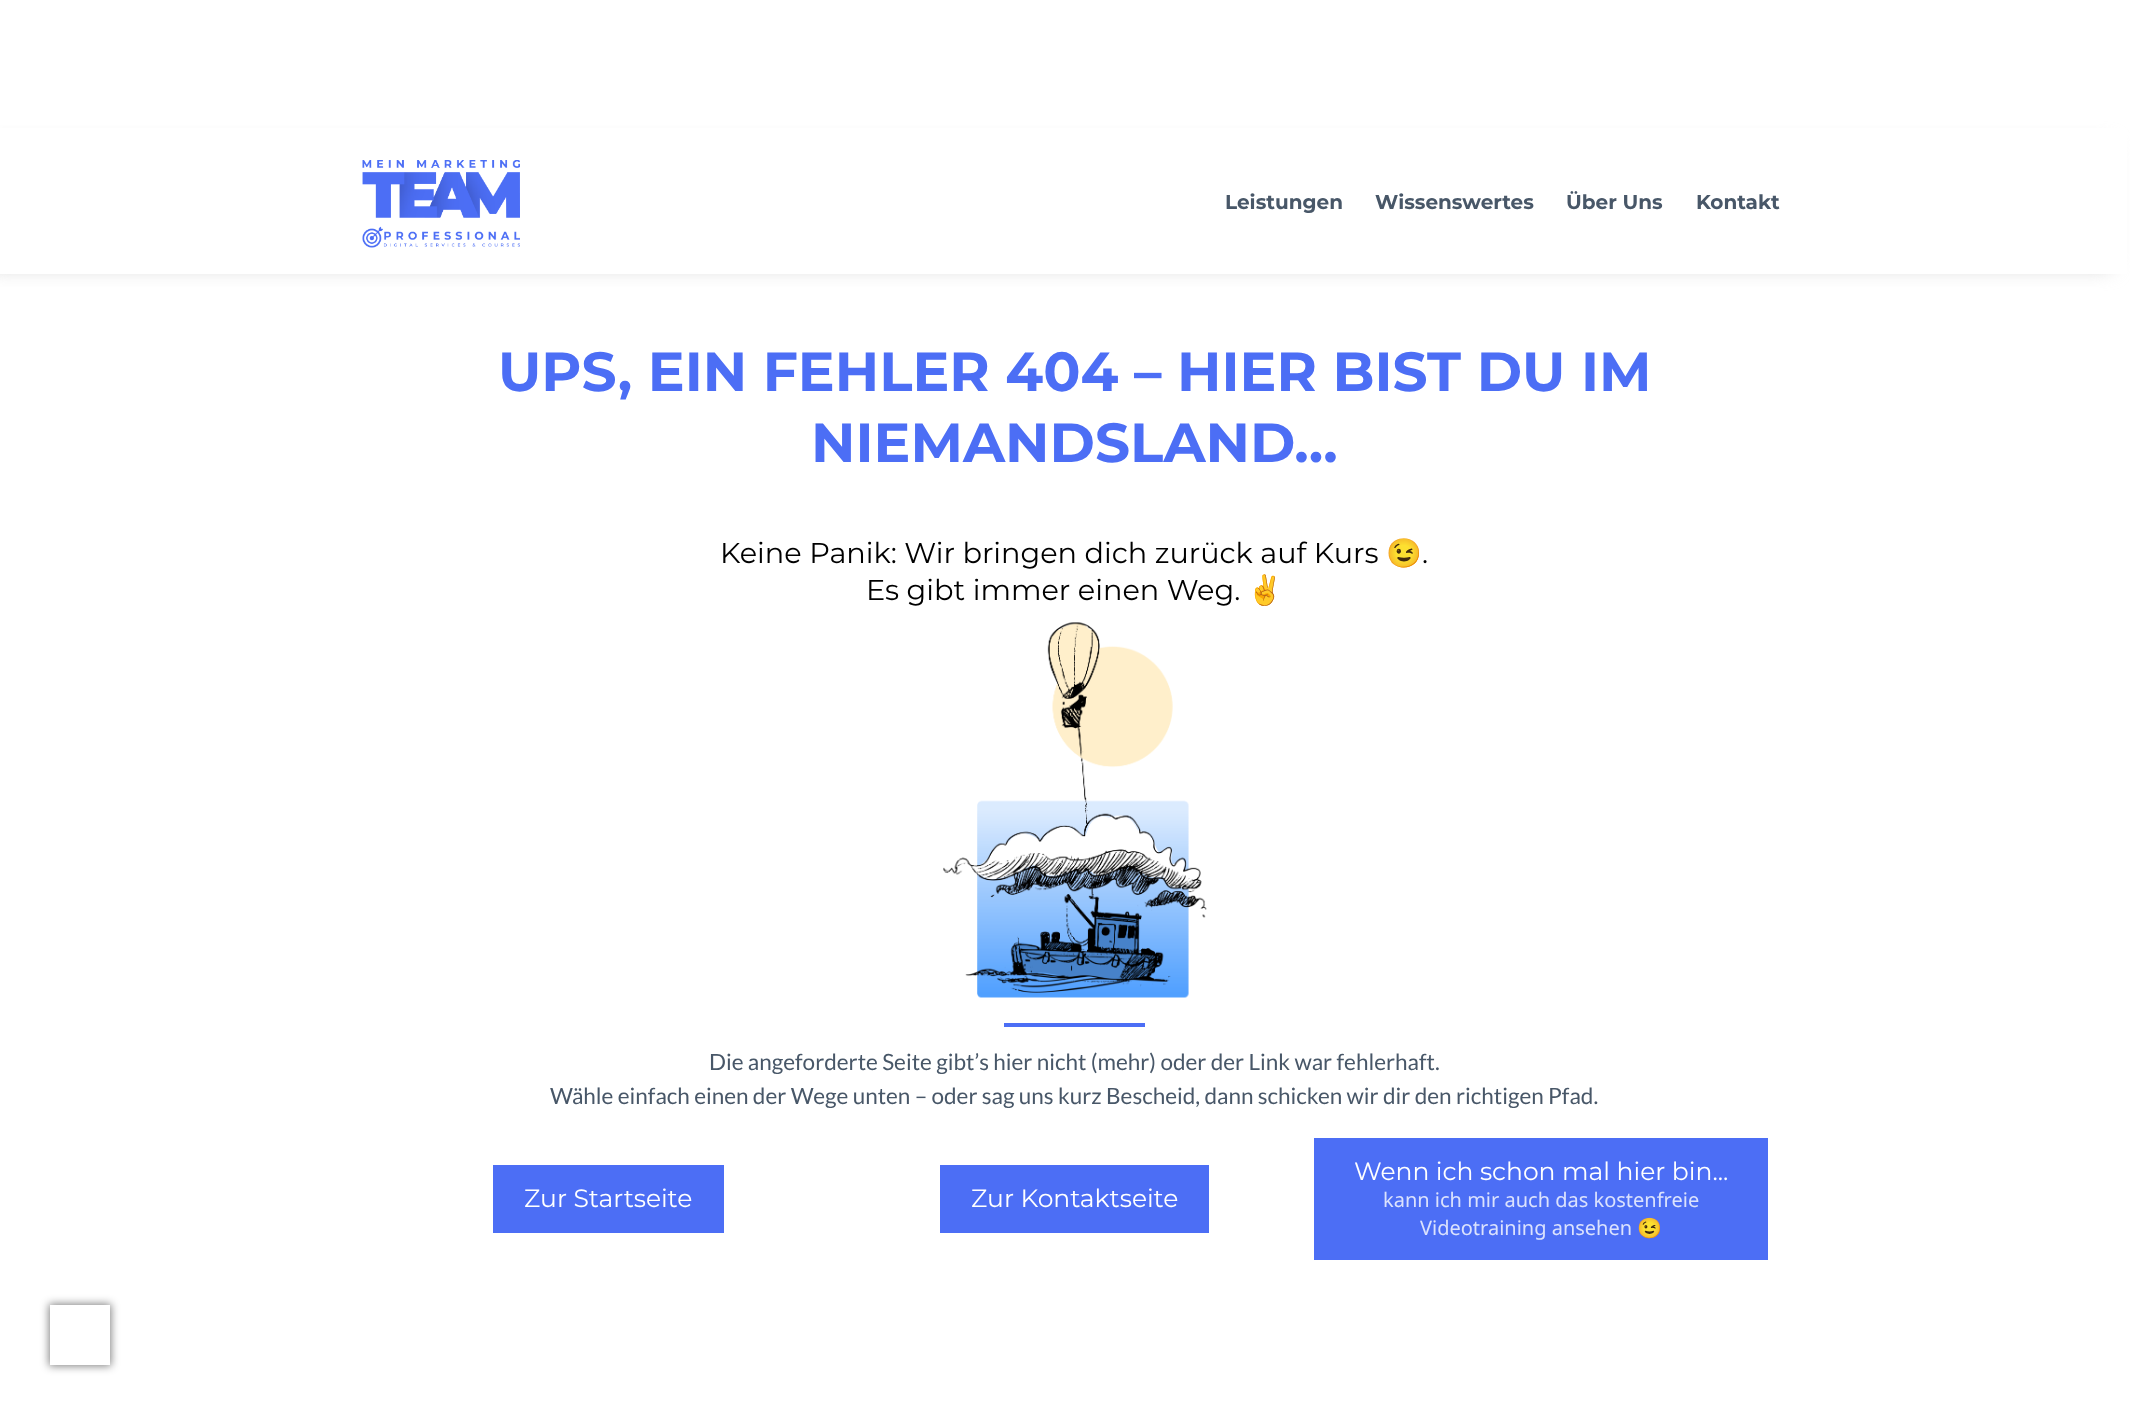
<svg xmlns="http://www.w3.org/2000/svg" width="2148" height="1415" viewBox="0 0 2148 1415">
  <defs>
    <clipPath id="clip1"><path d="M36 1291H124V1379H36ZM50 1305H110V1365H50Z" clip-rule="evenodd"/></clipPath>
  </defs>
  <rect width="100%" height="100%" fill="rgb(255,255,255)"/>
  <rect x="-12" y="144" width="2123" height="124" fill="rgb(204,204,204)" filter="blur(9.5px)"/>
  <rect x="0" y="128" width="2127" height="146" fill="rgb(255,255,255)"/>
  <image x="362" y="160" width="158" height="88" href="pic1.png"/>
  <g font-family="Montserrat" font-size="20" font-weight="100" fill="rgb(72,87,104)">
    <text x="1225" y="209">Leistungen</text>
    <text x="1375" y="209">Wissenswertes</text>
    <text x="1566" y="209">Über Uns</text>
    <text x="1696" y="209">Kontakt</text>
  </g>
  <g font-family="Montserrat" font-size="55" font-weight="100" fill="rgb(76,110,245)">
    <text x="498" y="391">UPS, EIN FEHLER 404 – HIER BIST DU IM</text>
    <text x="811" y="462">NIEMANDSLAND...</text>
  </g>
  <text x="720" y="563" font-family="'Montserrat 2'" font-size="28.75" font-weight="100" fill="rgb(0,0,0)">Keine Panik: Wir bringen dich zurück auf Kurs</text>
  <text x="1386" y="563" font-family="Noto Color Emoji" font-size="28.75" fill="rgb(0,0,0)">😉</text>
  <g font-family="'Montserrat 2'" font-size="28.75" font-weight="100" fill="rgb(0,0,0)">
    <text x="1422" y="563">.</text>
    <text x="866" y="600">Es gibt immer einen Weg.</text>
  </g>
  <text x="1247" y="600" font-family="Noto Color Emoji" font-size="28.75" fill="rgb(0,0,0)">✌️</text>
  <image x="943" y="622" width="264" height="376" href="pic2.png"/>
  <rect x="1004" y="1023" width="141" height="4" fill="rgb(76,110,245)"/>
  <g font-family="Lato" font-size="22.5" fill="rgb(72,87,104)">
    <text x="709" y="1070">Die angeforderte Seite gibt’s hier nicht (mehr) oder der Link war fehlerhaft.</text>
    <text x="550" y="1104">Wähle einfach einen der Wege unten – oder sag uns kurz Bescheid, dann schicken wir dir den richtigen Pfad.</text>
  </g>
  <rect x="493" y="1165" width="231" height="68" fill="rgb(76,110,245)"/>
  <text x="524" y="1207" font-family="'Montserrat 2'" font-size="25" font-weight="100" fill="rgb(255,255,255)">Zur Startseite</text>
  <rect x="940" y="1165" width="269" height="68" fill="rgb(76,110,245)"/>
  <text x="971" y="1207" font-family="'Montserrat 2'" font-size="25" font-weight="100" fill="rgb(255,255,255)">Zur Kontaktseite</text>
  <rect x="1314" y="1138" width="454" height="122" fill="rgb(76,110,245)"/>
  <text x="1354" y="1180" font-family="'Montserrat 2'" font-size="25" font-weight="100" fill="rgb(255,255,255)">Wenn ich schon mal hier bin...</text>
  <g font-family="Noto Sans" font-size="20" fill="rgb(219,226,253)">
    <text x="1383" y="1207">kann ich mir auch das kostenfreie</text>
    <text x="1420" y="1235">Videotraining ansehen</text>
  </g>
  <text x="1637" y="1235" font-family="Noto Color Emoji" font-size="20" fill="rgb(219,226,253)">😉</text>
  <g clip-path="url(#clip1)">
    <rect x="49" y="1304" width="62" height="62" fill="rgba(0,0,0,0.5)" filter="blur(4px)"/>
  </g>
</svg>
